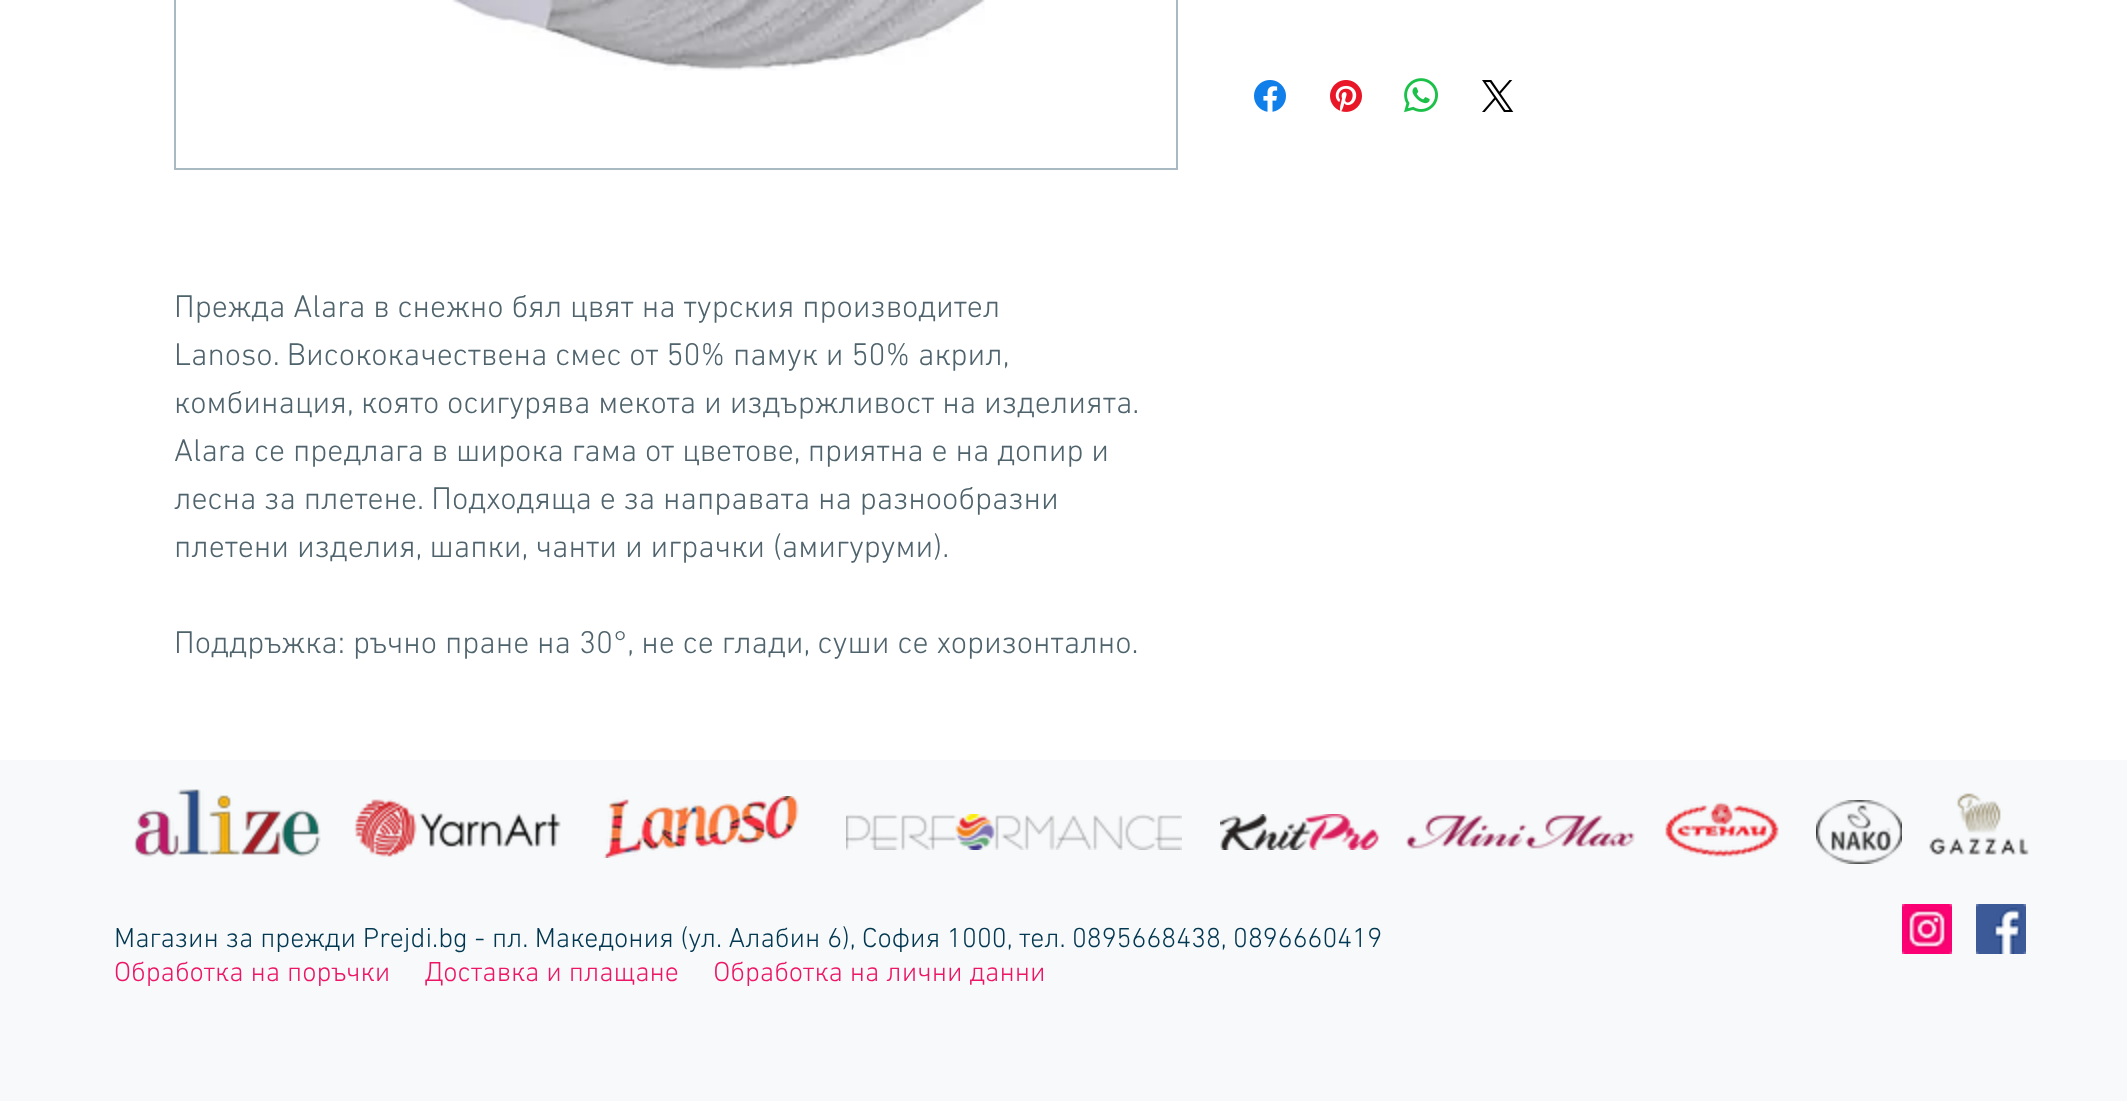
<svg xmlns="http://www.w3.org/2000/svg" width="2127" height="1101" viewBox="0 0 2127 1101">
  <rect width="100%" height="100%" fill="rgb(255,255,255)"/>
  <image x="1254" y="80" width="32" height="32" href="pic1.png"/>
  <image x="1330" y="80" width="32" height="32" href="pic2.png"/>
  <image x="1404" y="78" width="34" height="35" href="pic3.png"/>
  <image x="1482" y="80" width="32" height="32" href="pic4.png"/>
  <rect x="175" y="-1" width="1002" height="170" fill="none" stroke="rgb(168,185,194)" stroke-width="2"/>
  <image x="452" y="0" width="533" height="71" href="pic5.png"/>
  <g font-family="'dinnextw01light'" font-size="32" font-weight="300" fill="rgb(79,99,109)">
    <text>
      <tspan x="174" y="317">Прежда Alara в снежно бял цвят на турския производител</tspan>
      <tspan x="174" y="365">Lanoso. Висококачествена смес от 50% памук и 50% акрил,</tspan>
      <tspan x="174" y="413">комбинация, която осигурява мекота и издържливост на изделията.</tspan>
      <tspan x="174" y="461">Alara се предлага в широка гама от цветове, приятна е на допир и</tspan>
      <tspan x="174" y="509">лесна за плетене. Подходяща е за направата на разнообразни</tspan>
      <tspan x="174" y="557">плетени изделия, шапки, чанти и играчки (амигуруми).</tspan>
    </text>
    <text x="174" y="653">Поддръжка: ръчно пране на 30°, не се глади, суши се хоризонтално.</text>
  </g>
  <rect x="0" y="760" width="2127" height="341" fill="rgb(247,249,250)"/>
  <image x="134" y="789" width="187" height="68" href="pic6.png"/>
  <image x="354" y="799" width="207" height="58" href="pic7.png"/>
  <image x="603" y="796" width="196" height="62" href="pic8.png"/>
  <image x="846" y="814" width="336" height="36" href="pic9.png"/>
  <image x="1220" y="814" width="160" height="36" href="pic10.png"/>
  <image x="1406" y="814" width="229" height="35" href="pic11.png"/>
  <image x="1665" y="801" width="114" height="56" href="pic12.png"/>
  <image x="1816" y="800" width="86" height="64" href="pic13.png"/>
  <image x="1929" y="793" width="100" height="62" href="pic14.png"/>
  <text x="114" y="947" font-family="'dinnextw01light'" font-size="28" font-weight="300" fill="rgb(2,55,81)">Магазин за прежди Prejdi.bg - пл. Македония (ул. Алабин 6), София 1000, тел. 0895668438, 0896660419</text>
  <text x="114" y="981" font-family="'dinnextw01light'" font-size="28" font-weight="300" fill="rgb(237,21,102)" xml:space="preserve">Обработка на поръчки     Доставка и плащане     Обработка на лични данни</text>
  <image x="1902" y="904" width="50" height="50" href="pic15.png"/>
  <image x="1976" y="904" width="50" height="50" href="pic16.png"/>
</svg>
